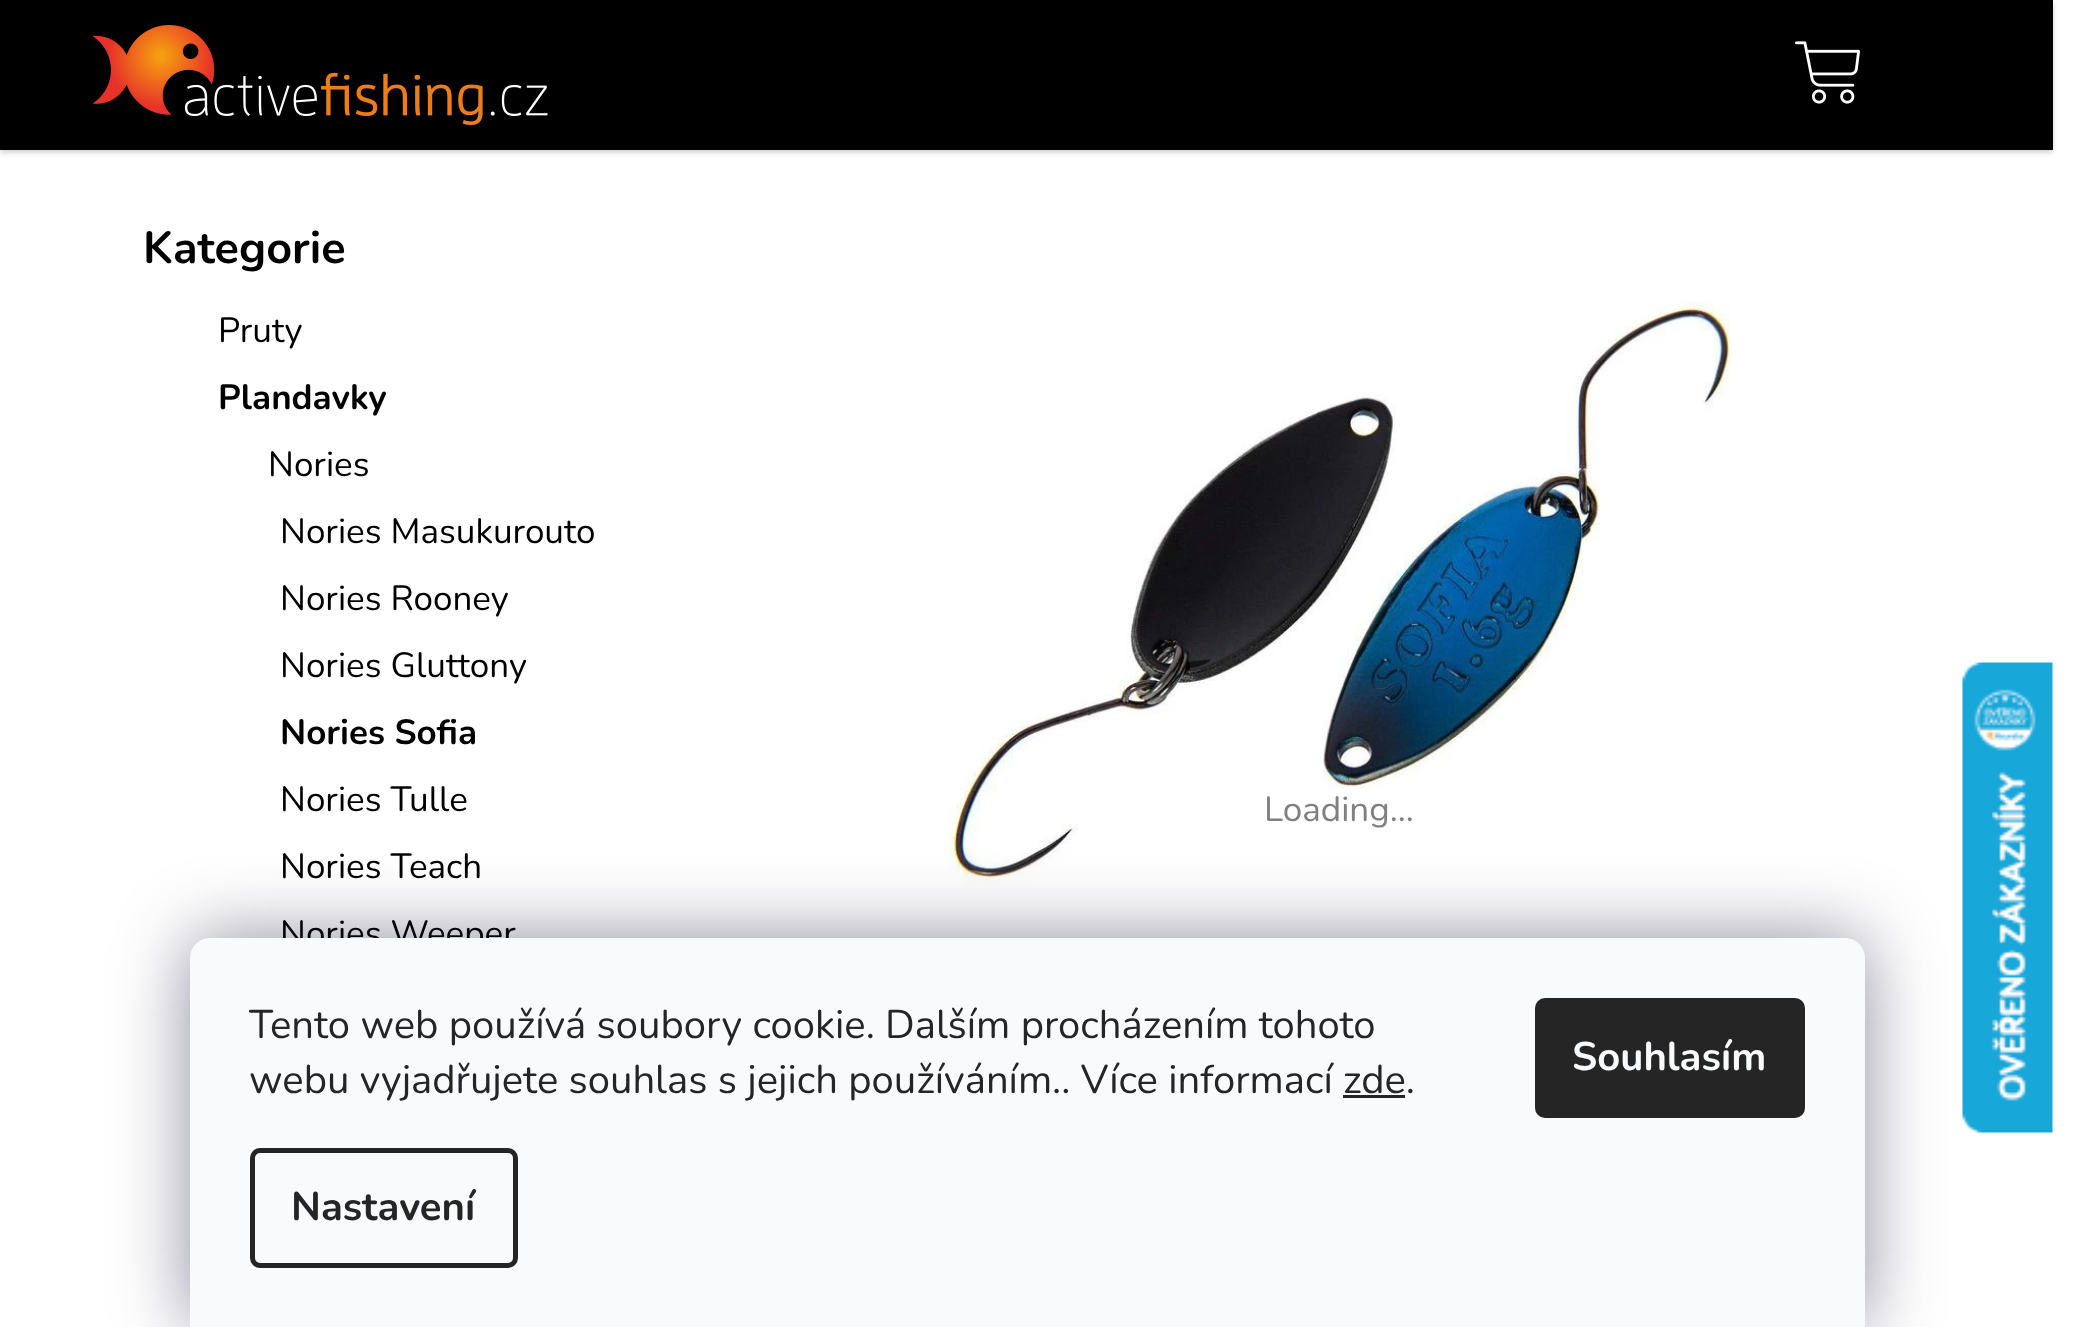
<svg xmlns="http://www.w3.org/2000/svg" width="2088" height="1327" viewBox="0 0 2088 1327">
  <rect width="100%" height="100%" fill="rgb(255,255,255)"/>
  <rect x="0" y="3" width="2053" height="150" fill="rgba(0,0,0,0.16)" filter="blur(2.5px)"/>
  <rect x="0" y="0" width="2053" height="150" fill="rgb(0,0,0)"/>
  <image x="93" y="25" width="455" height="100" href="pic1.png"/>
  <image x="1795" y="41" width="65" height="63" href="pic2.png"/>
  <text x="143" y="263" font-family="Nunito" font-size="45" font-weight="bold" fill="rgb(0,0,0)">Kategorie</text>
  <text x="218" y="342" font-family="Nunito" font-size="35" fill="rgb(0,0,0)">Pruty</text>
  <text x="218" y="409" font-family="Nunito" font-size="35" font-weight="bold" fill="rgb(0,0,0)">Plandavky</text>
  <g font-family="Nunito" font-size="35" fill="rgb(0,0,0)">
    <text x="268" y="476">Nories</text>
    <text>
      <tspan x="280" y="543">Nories Masukurouto</tspan>
      <tspan x="280" y="610">Nories Rooney</tspan>
      <tspan x="280" y="677">Nories Gluttony</tspan>
    </text>
  </g>
  <text x="280" y="744" font-family="Nunito" font-size="35" font-weight="bold" fill="rgb(0,0,0)">Nories Sofia</text>
  <g font-family="Nunito" font-size="35" fill="rgb(0,0,0)">
    <text>
      <tspan x="280" y="811">Nories Tulle</tspan>
      <tspan x="280" y="878">Nories Teach</tspan>
      <tspan x="280" y="945">Nories Weeper</tspan>
    </text>
  </g>
  <image x="948" y="300" width="786" height="585" href="pic3.png"/>
  <text x="1264" y="821" font-family="Nunito" font-size="35" fill="rgb(128,128,128)">Loading...</text>
  <rect x="190" y="938" width="1675" height="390" rx="20" fill="rgba(27,25,57,0.5)" filter="blur(37.5px)"/>
  <image x="1962" y="662" width="91" height="471" href="pic4.png"/>
  <path d="M210 938H1845C1856 938 1865 947 1865 958V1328H190V958C190 947 199 938 210 938Z" fill="rgb(248,250,251)"/>
  <g font-family="Nunito" font-size="40" fill="rgb(37,37,37)">
    <text>
      <tspan x="249" y="1038">Tento web používá soubory cookie. Dalším procházením tohoto</tspan>
      <tspan x="249" y="1093">webu vyjadřujete souhlas s jejich používáním.. Více informací zde.</tspan>
    </text>
  </g>
  <rect x="1343" y="1095" width="62" height="3" fill="rgb(37,37,37)"/>
  <rect x="252.5" y="1150.5" width="263" height="115" rx="7.5" fill="none" stroke="rgb(37,37,37)" stroke-width="5"/>
  <text x="291" y="1220" font-family="Nunito" font-size="40" font-weight="bold" fill="rgb(37,37,37)">Nastavení</text>
  <rect x="1535" y="998" width="270" height="120" rx="10" fill="rgb(37,37,37)"/>
  <text x="1572" y="1070" font-family="Nunito" font-size="40" font-weight="bold" fill="rgb(248,250,251)">Souhlasím</text>
</svg>
